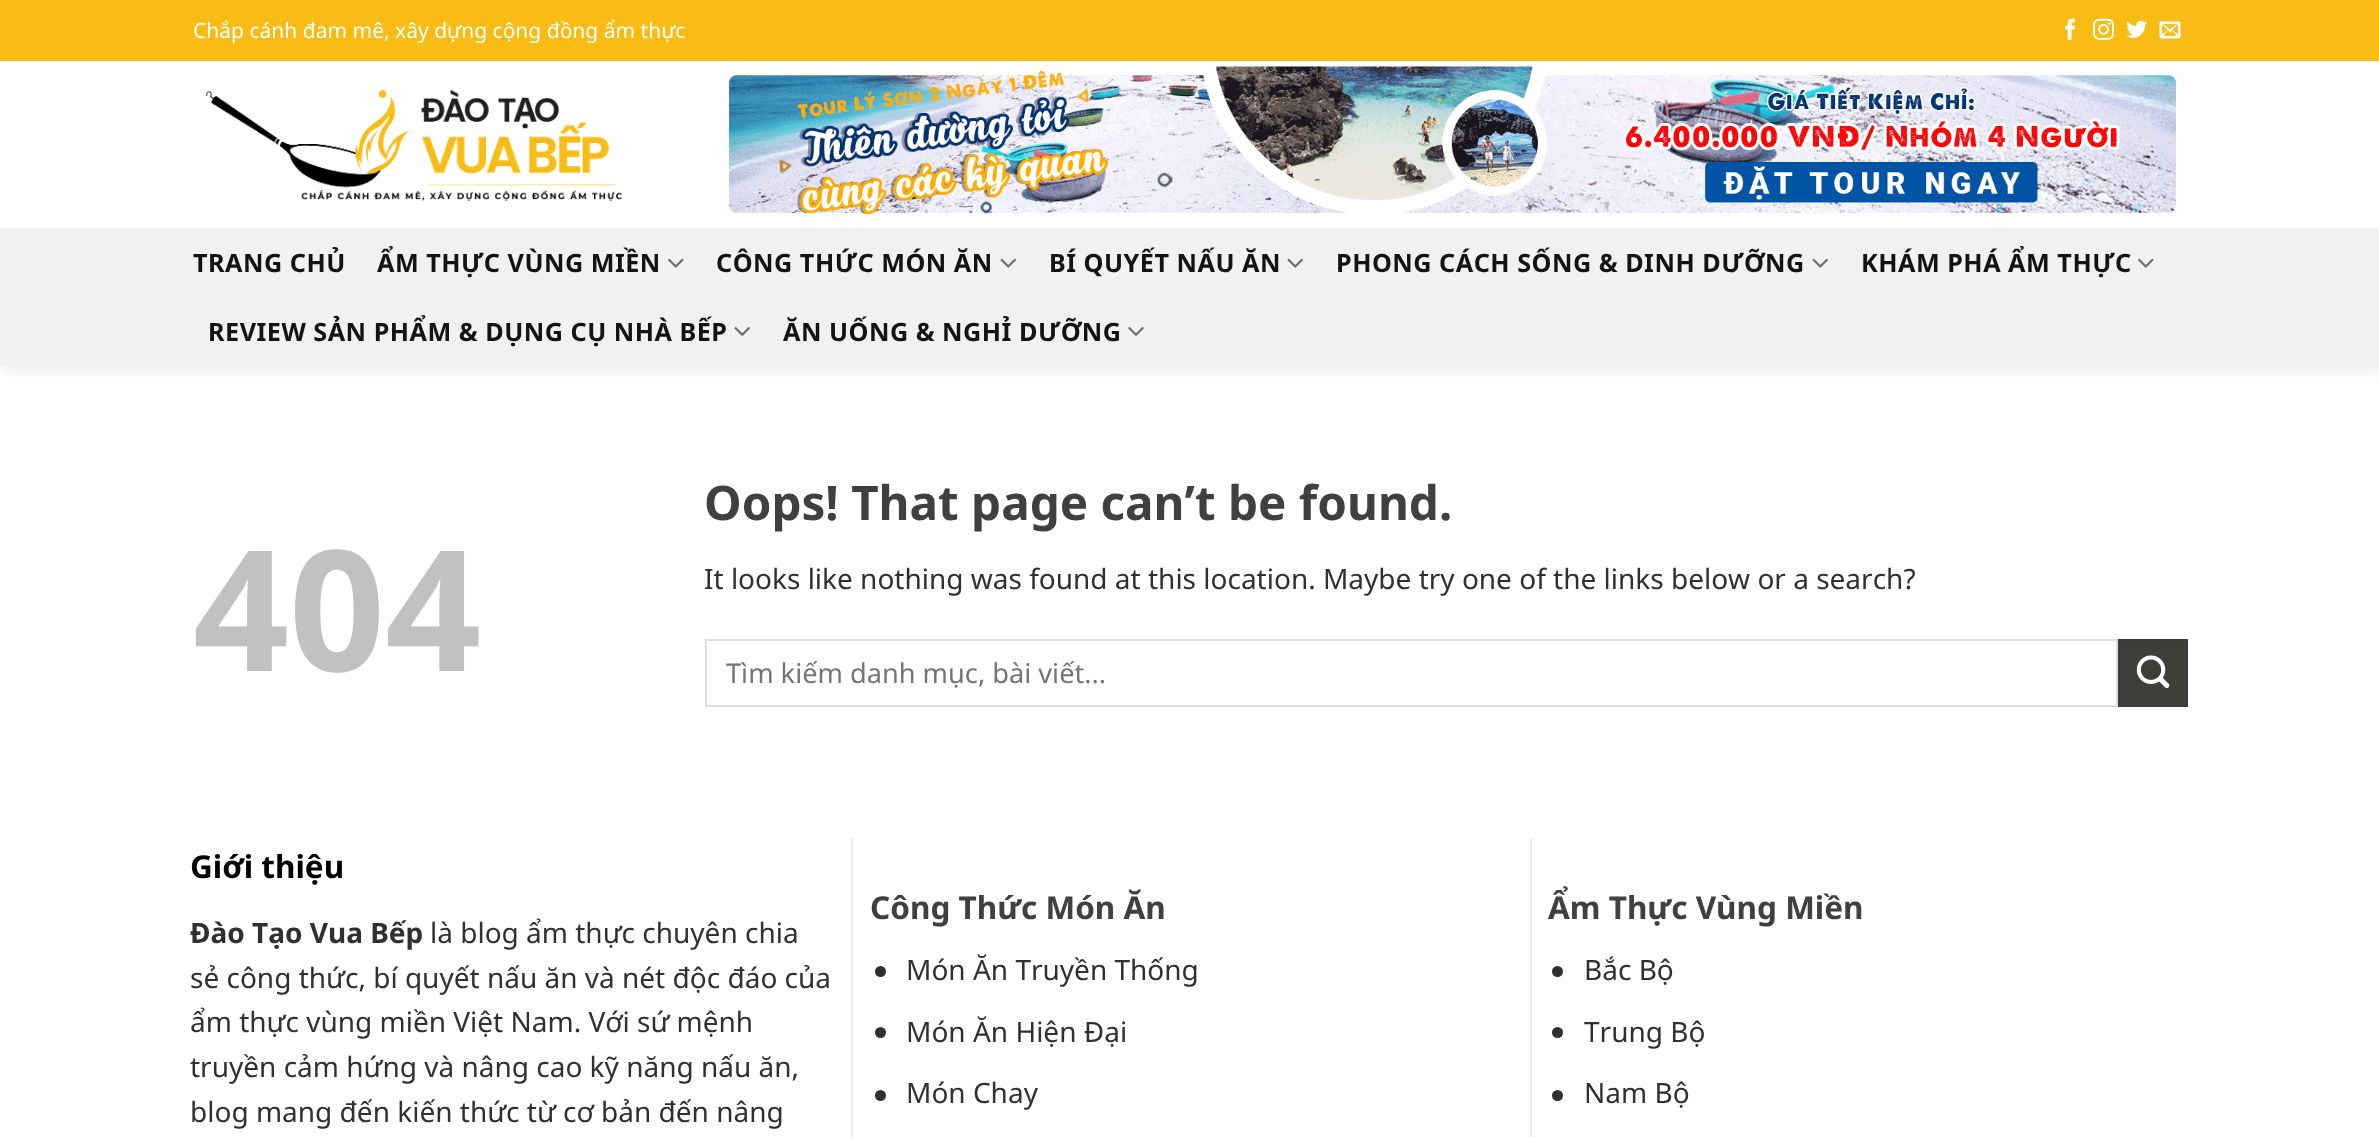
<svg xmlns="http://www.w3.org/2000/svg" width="2379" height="1137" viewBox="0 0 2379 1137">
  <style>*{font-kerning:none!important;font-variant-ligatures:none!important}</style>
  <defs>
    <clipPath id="clip1"><rect x="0" y="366" width="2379" height="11"/></clipPath>
  </defs>
  <rect width="100%" height="100%" fill="rgb(255,255,255)"/>
  <g clip-path="url(#clip1)">
    <rect x="4" y="4" width="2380" height="365" fill="rgba(0,0,0,0.1)" filter="blur(9px)"/>
  </g>
  <rect x="0" y="0" width="2379" height="61" fill="rgb(248,188,21)"/>
  <text x="193" y="38" font-family="Noto Sans" font-size="21" fill="rgb(255,255,255)">Chắp cánh đam mê, xây dựng cộng đồng ẩm thực</text>
  <image x="2065" y="18" width="10" height="22" href="pic1.png"/>
  <image x="2093" y="18" width="21" height="22" href="pic2.png"/>
  <image x="2126" y="20" width="22" height="18" href="pic3.png"/>
  <image x="2159" y="21" width="22" height="18" href="pic4.png"/>
  <image x="205" y="89" width="417" height="112" href="pic5.png"/>
  <image x="729" y="66" width="1447" height="149" href="pic6.png"/>
  <rect x="0" y="230" width="2379" height="136" fill="rgb(241,241,241)"/>
  <rect x="0" y="228" width="2379" height="2" fill="rgb(239,239,239)"/>
  <g font-family="Noto Sans" font-size="25.2" font-weight="bold" letter-spacing="0.5" fill="rgb(21,18,18)">
    <text x="193" y="272">TRANG CHỦ</text>
    <text x="377" y="272">ẨM THỰC VÙNG MIỀN</text>
  </g>
  <image x="668" y="258" width="16" height="10" href="pic7.png"/>
  <text x="716" y="272" font-family="Noto Sans" font-size="25.2" font-weight="bold" letter-spacing="0.5" fill="rgb(21,18,18)">CÔNG THỨC MÓN ĂN</text>
  <image x="1000" y="258" width="16" height="10" href="pic8.png"/>
  <text x="1049" y="272" font-family="Noto Sans" font-size="25.2" font-weight="bold" letter-spacing="0.5" fill="rgb(21,18,18)">BÍ QUYẾT NẤU ĂN</text>
  <image x="1287" y="258" width="16" height="10" href="pic8.png"/>
  <text x="1336" y="272" font-family="Noto Sans" font-size="25.2" font-weight="bold" letter-spacing="0.5" fill="rgb(21,18,18)">PHONG CÁCH SỐNG &amp; DINH DƯỠNG</text>
  <image x="1812" y="258" width="16" height="10" href="pic8.png"/>
  <text x="1861" y="272" font-family="Noto Sans" font-size="25.2" font-weight="bold" letter-spacing="0.5" fill="rgb(21,18,18)">KHÁM PHÁ ẨM THỰC</text>
  <image x="2138" y="258" width="16" height="10" href="pic7.png"/>
  <text x="208" y="341" font-family="Noto Sans" font-size="25.2" font-weight="bold" letter-spacing="0.5" fill="rgb(21,18,18)">REVIEW SẢN PHẨM &amp; DỤNG CỤ NHÀ BẾP</text>
  <image x="734" y="327" width="16" height="9" href="pic9.png"/>
  <text x="783" y="341" font-family="Noto Sans" font-size="25.2" font-weight="bold" letter-spacing="0.5" fill="rgb(21,18,18)">ĂN UỐNG &amp; NGHỈ DƯỠNG</text>
  <image x="1128" y="327" width="16" height="9" href="pic10.png"/>
  <text x="193" y="671" font-family="Noto Sans" font-size="168" font-weight="bold" fill="rgb(193,193,193)">404</text>
  <text x="704" y="520" font-family="Noto Sans" font-size="47.6" font-weight="bold" fill="rgb(64,64,64)">Oops! That page can’t be found.</text>
  <text x="704" y="589" font-family="Noto Sans" font-size="28" fill="rgb(48,48,48)">It looks like nothing was found at this location. Maybe try one of the links below or a search?</text>
  <rect x="706" y="640" width="1411" height="66" fill="none" stroke="rgb(221,221,221)" stroke-width="2"/>
  <text x="726" y="683" font-family="Noto Sans" font-size="27.2" fill="rgb(117,117,117)">Tìm kiếm danh mục, bài viết...</text>
  <rect x="2119" y="640" width="68" height="66" fill="rgb(63,62,59)" stroke="rgb(60,59,56)" stroke-width="2"/>
  <image x="2136" y="655" width="34" height="33" href="pic11.png"/>
  <text x="190" y="878" font-family="Noto Sans" font-size="31.5" font-weight="bold" fill="rgb(0,0,0)">Giới thiệu</text>
  <text x="190" y="943" font-family="Noto Sans" font-size="28" font-weight="bold" fill="rgb(48,48,48)">Đào Tạo Vua Bếp</text>
  <g font-family="Noto Sans" font-size="28" fill="rgb(48,48,48)">
    <text x="430" y="943">là blog ẩm thực chuyên chia</text>
    <text>
      <tspan x="190" y="988">sẻ công thức, bí quyết nấu ăn và nét độc đáo của</tspan>
      <tspan x="190" y="1032">ẩm thực vùng miền Việt Nam. Với sứ mệnh</tspan>
      <tspan x="190" y="1077">truyền cảm hứng và nâng cao kỹ năng nấu ăn,</tspan>
      <tspan x="190" y="1122">blog mang đến kiến thức từ cơ bản đến nâng</tspan>
    </text>
  </g>
  <rect x="851" y="838" width="2" height="299" fill="rgb(236,236,236)"/>
  <text x="870" y="919" font-family="Noto Sans" font-size="31.5" font-weight="bold" fill="rgb(64,64,64)">Công Thức Món Ăn</text>
  <circle cx="880.5" cy="971.5" r="5.5" fill="rgb(48,48,48)"/>
  <text x="906" y="980" font-family="Noto Sans" font-size="28" fill="rgb(48,48,48)">Món Ăn Truyền Thống</text>
  <circle cx="880.5" cy="1032.5" r="5.5" fill="rgb(48,48,48)"/>
  <text x="906" y="1042" font-family="Noto Sans" font-size="28" fill="rgb(48,48,48)">Món Ăn Hiện Đại</text>
  <circle cx="880.5" cy="1095.5" r="5.5" fill="rgb(48,48,48)"/>
  <text x="906" y="1103" font-family="Noto Sans" font-size="28" fill="rgb(48,48,48)">Món Chay</text>
  <rect x="1530" y="838" width="2" height="299" fill="rgb(236,236,236)"/>
  <text x="1548" y="919" font-family="Noto Sans" font-size="31.5" font-weight="bold" fill="rgb(64,64,64)">Ẩm Thực Vùng Miền</text>
  <circle cx="1557.5" cy="971.5" r="5.5" fill="rgb(48,48,48)"/>
  <text x="1584" y="980" font-family="Noto Sans" font-size="28" fill="rgb(48,48,48)">Bắc Bộ</text>
  <circle cx="1557.5" cy="1032.5" r="5.5" fill="rgb(48,48,48)"/>
  <text x="1584" y="1042" font-family="Noto Sans" font-size="28" fill="rgb(48,48,48)">Trung Bộ</text>
  <circle cx="1557.5" cy="1095.5" r="5.5" fill="rgb(48,48,48)"/>
  <text x="1584" y="1103" font-family="Noto Sans" font-size="28" fill="rgb(48,48,48)">Nam Bộ</text>
</svg>
